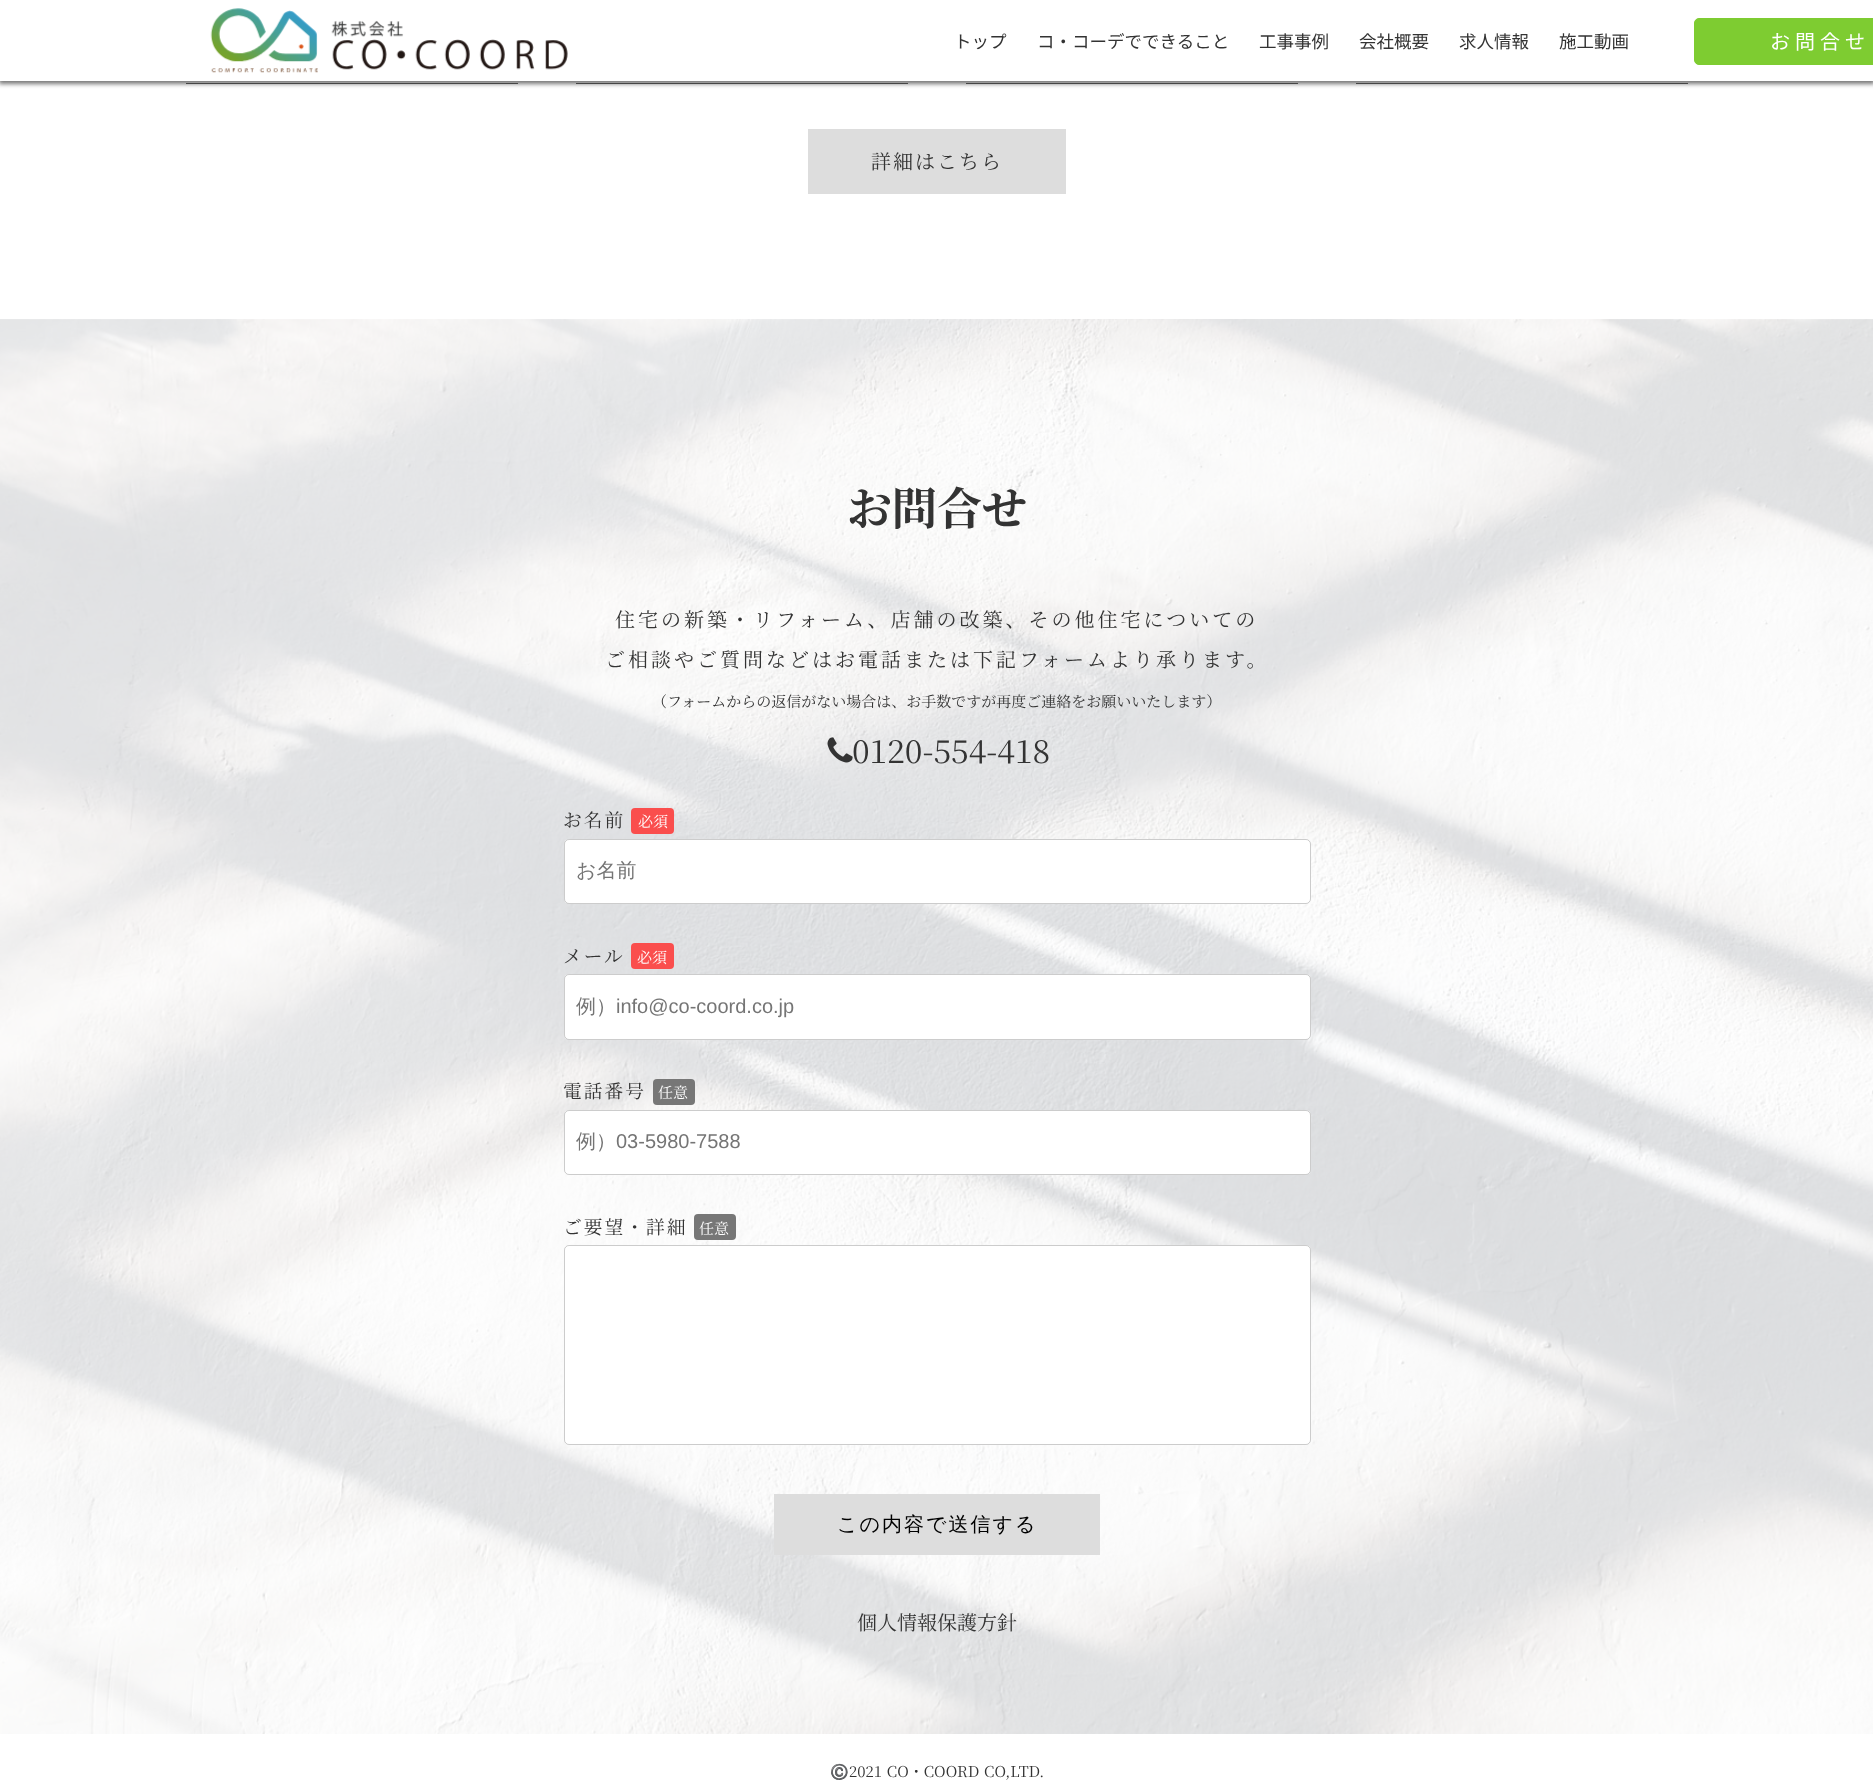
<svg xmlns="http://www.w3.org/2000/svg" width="1873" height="1784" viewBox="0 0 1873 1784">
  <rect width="100%" height="100%" fill="rgb(255,255,255)"/>
  <rect x="186" y="83" width="332" height="1" fill="rgb(0,0,0)"/>
  <rect x="576" y="83" width="332" height="1" fill="rgb(0,0,0)"/>
  <rect x="966" y="83" width="332" height="1" fill="rgb(0,0,0)"/>
  <rect x="1356" y="83" width="332" height="1" fill="rgb(0,0,0)"/>
  <rect x="-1" y="0" width="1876" height="84" fill="rgb(119,119,119)" filter="blur(2px)"/>
  <rect x="0" y="0" width="1873" height="81" fill="rgb(255,255,255)"/>
  <image x="210" y="8" width="358" height="65" href="pic1.png"/>
  <g font-family="Noto Sans JP" font-size="17.5" fill="rgb(51,51,51)">
    <text x="954" y="48">トップ</text>
    <text x="1037" y="48">コ・コーデでできること</text>
    <text x="1259" y="48">工事事例</text>
    <text x="1359" y="48">会社概要</text>
    <text x="1459" y="48">求人情報</text>
    <text x="1559" y="48">施工動画</text>
  </g>
  <rect x="1694.5" y="18.5" width="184" height="46" rx="4.5" fill="rgb(126,204,49)" stroke="rgb(126,204,49)"/>
  <text x="1770" y="49" font-family="Noto Sans JP" font-size="20" letter-spacing="5" fill="rgb(255,255,255)">お問合せ</text>
  <rect x="808" y="129" width="258" height="65" fill="rgb(221,221,221)"/>
  <text x="871" y="169" font-family="Noto Serif JP" font-size="20" letter-spacing="2" fill="rgb(51,51,51)">詳細はこちら</text>
  <image x="0" y="319" width="1873" height="1415" href="pic2.png"/>
  <text x="847" y="525" font-family="Noto Serif JP" font-size="45" font-weight="bold" fill="rgb(51,51,51)">お問合せ</text>
  <g font-family="Noto Serif JP" font-size="20" letter-spacing="3" fill="rgb(51,51,51)">
    <text x="615" y="627">住宅の新築・リフォーム、店舗の改築、その他住宅についての</text>
    <text x="605" y="667">ご相談やご質問などはお電話または下記フォームより承ります。</text>
  </g>
  <text x="652" y="707" font-family="Noto Serif JP" font-size="15" fill="rgb(51,51,51)">（フォームからの返信がない場合は、お手数ですが再度ご連絡をお願いいたします）</text>
  <image x="827" y="737" width="26" height="26" href="pic3.png"/>
  <text x="852" y="763" font-family="Noto Serif JP" font-size="32" fill="rgb(51,51,51)">0120-554-418</text>
  <text x="563" y="827" font-family="Noto Serif JP" font-size="18.75" letter-spacing="2" fill="rgb(51,51,51)">お名前</text>
  <rect x="631" y="808" width="43" height="26" rx="4" fill="rgb(250,78,77)"/>
  <text x="638" y="827" font-family="Noto Serif JP" font-size="15" fill="rgb(255,255,255)">必須</text>
  <rect x="564" y="839" width="747" height="65" rx="5" fill="rgb(255,255,255)"/>
  <rect x="564.5" y="839.5" width="746" height="64" rx="4.5" fill="none" stroke="rgba(0,0,0,0.2)"/>
  <text x="576" y="877" font-family="WenQuanYi Zen Hei" font-size="20" font-weight="500" fill="rgb(117,117,117)">お名前</text>
  <text x="563" y="963" font-family="Noto Serif JP" font-size="18.75" letter-spacing="2" fill="rgb(51,51,51)">メール</text>
  <rect x="631" y="943" width="43" height="26" rx="4" fill="rgb(250,78,77)"/>
  <text x="637" y="963" font-family="Noto Serif JP" font-size="15" fill="rgb(255,255,255)">必須</text>
  <rect x="564" y="974" width="747" height="66" rx="5" fill="rgb(255,255,255)"/>
  <rect x="564.5" y="974.5" width="746" height="65" rx="4.5" fill="none" stroke="rgba(0,0,0,0.2)"/>
  <text x="576" y="1013" font-family="WenQuanYi Zen Hei" font-size="20" font-weight="500" fill="rgb(117,117,117)">例）</text>
  <text x="616" y="1013" font-family="Liberation Sans" font-size="20" fill="rgb(117,117,117)">info@co-coord.co.jp</text>
  <text x="563" y="1098" font-family="Noto Serif JP" font-size="18.75" letter-spacing="2" fill="rgb(51,51,51)">電話番号</text>
  <rect x="653" y="1079" width="42" height="26" rx="4" fill="rgb(119,119,119)"/>
  <text x="658" y="1098" font-family="Noto Serif JP" font-size="15" fill="rgb(255,255,255)">任意</text>
  <rect x="564" y="1110" width="747" height="65" rx="5" fill="rgb(255,255,255)"/>
  <rect x="564.5" y="1110.5" width="746" height="64" rx="4.5" fill="none" stroke="rgba(0,0,0,0.2)"/>
  <text x="576" y="1148" font-family="WenQuanYi Zen Hei" font-size="20" font-weight="500" fill="rgb(117,117,117)">例）</text>
  <text x="616" y="1148" font-family="Liberation Sans" font-size="20" fill="rgb(117,117,117)">03-5980-7588</text>
  <text x="563" y="1234" font-family="Noto Serif JP" font-size="18.75" letter-spacing="2" fill="rgb(51,51,51)">ご要望・詳細</text>
  <rect x="694" y="1214" width="42" height="26" rx="4" fill="rgb(119,119,119)"/>
  <text x="699" y="1234" font-family="Noto Serif JP" font-size="15" fill="rgb(255,255,255)">任意</text>
  <rect x="564" y="1245" width="747" height="200" rx="5" fill="rgb(255,255,255)"/>
  <rect x="564.5" y="1245.5" width="746" height="199" rx="4.5" fill="none" stroke="rgba(0,0,0,0.2)"/>
  <rect x="774" y="1494" width="326" height="61" fill="rgb(221,221,221)"/>
  <text x="837" y="1531" font-family="WenQuanYi Zen Hei" font-size="20" font-weight="500" letter-spacing="2" fill="rgb(0,0,0)">この内容で送信する</text>
  <text x="857" y="1630" font-family="Noto Serif JP" font-size="20" fill="rgb(51,51,51)">個人情報保護方針</text>
  <text x="830" y="1777" font-family="Noto Color Emoji" font-size="15" fill="rgb(51,51,51)">©️</text>
  <text x="849" y="1777" word-spacing="1" font-family="Noto Serif JP" font-size="15" fill="rgb(51,51,51)">2021 CO・COORD CO,LTD.</text>
</svg>
